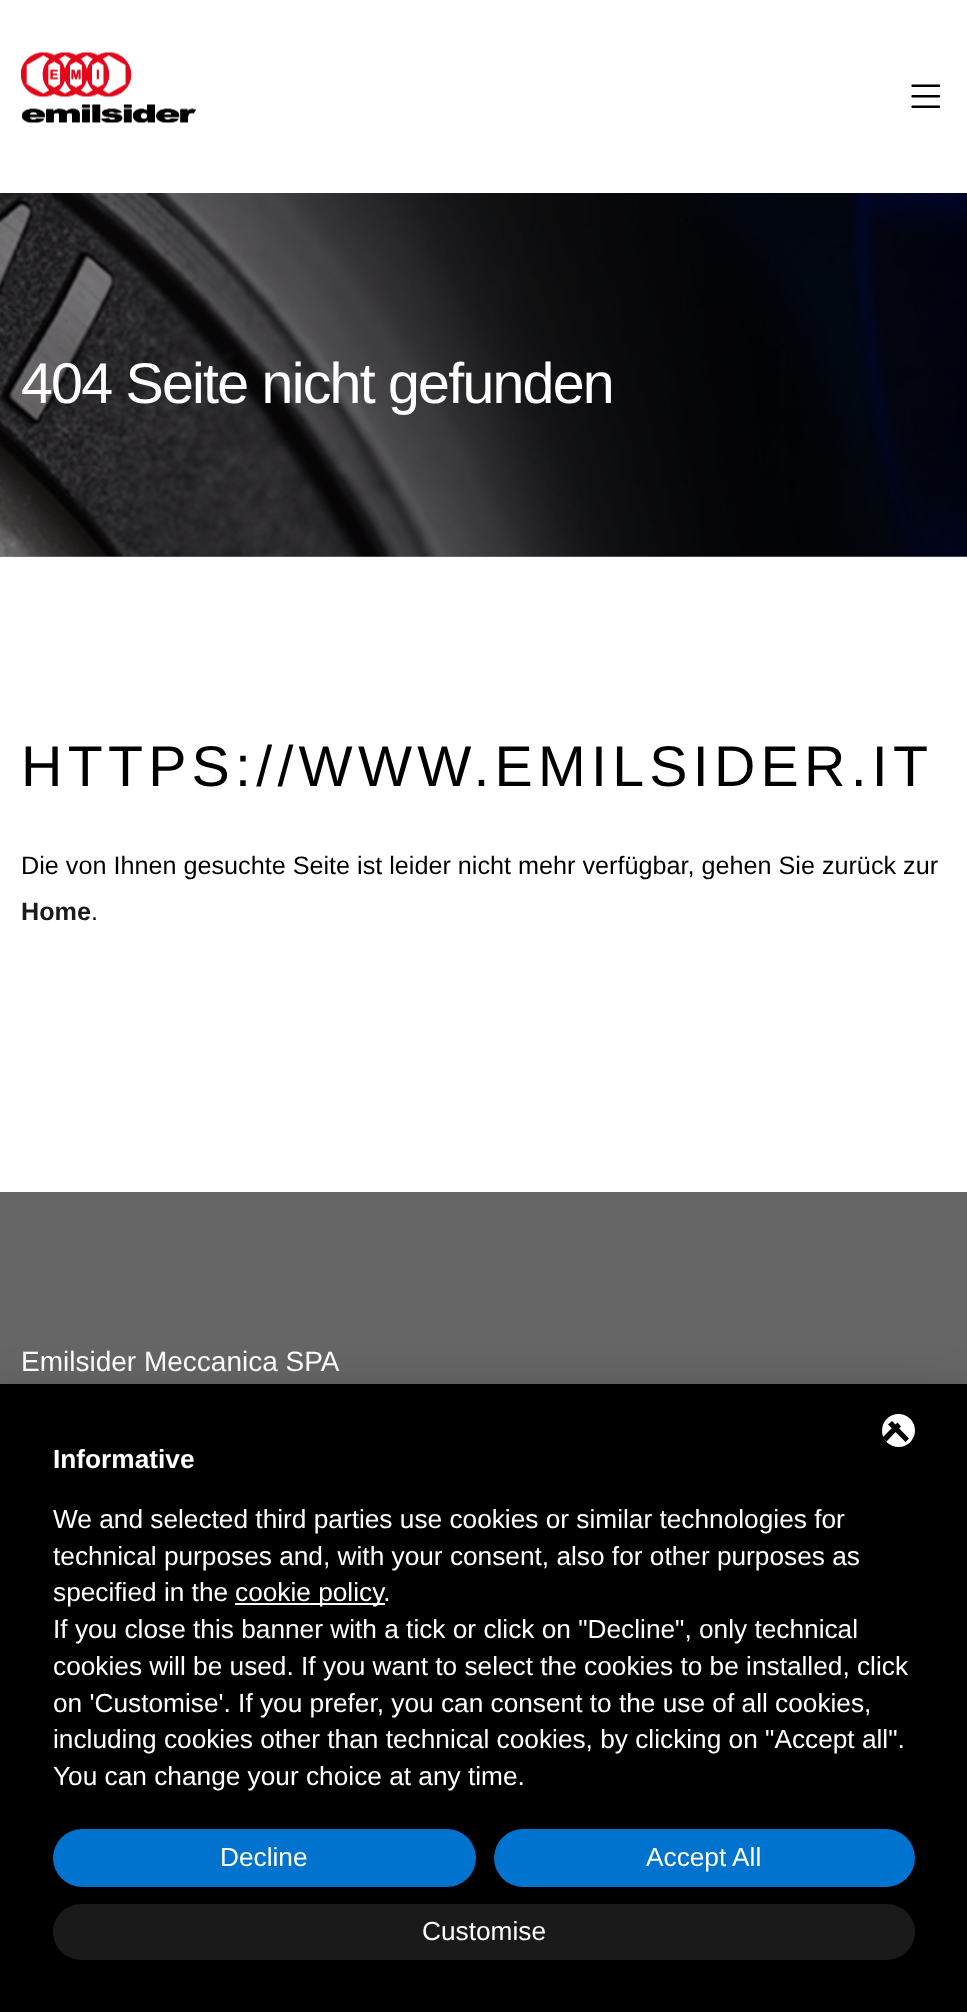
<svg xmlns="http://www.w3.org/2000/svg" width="967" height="2012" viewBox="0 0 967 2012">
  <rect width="100%" height="100%" fill="rgb(255,255,255)"/>
  <rect x="0" y="556" width="967" height="1" fill="rgb(128,128,128)"/>
  <image x="21" y="52" width="175" height="71" href="pic1.png"/>
  <image x="911" y="84" width="30" height="24" href="pic2.png"/>
  <image x="0" y="193" width="967" height="364" href="pic3.png"/>
  <text x="21" y="403" font-family="Liberation Sans" font-size="57.3" letter-spacing="-1.75" fill="rgb(255,255,255)">404 Seite nicht gefunden</text>
  <text x="21" y="786" font-family="Liberation Sans" font-size="57.3" letter-spacing="5.25" fill="rgb(0,0,0)">HTTPS://WWW.EMILSIDER.IT</text>
  <text x="21" y="874" font-family="Liberation Sans" font-size="25.2" fill="rgb(0,0,0)">Die von Ihnen gesuchte Seite ist leider nicht mehr verfügbar, gehen Sie zurück zur</text>
  <text x="21" y="920" font-family="Liberation Sans" font-size="25.2" font-weight="bold" fill="rgb(27,27,27)">Home</text>
  <text x="91" y="920" font-family="Liberation Sans" font-size="25.2" fill="rgb(0,0,0)">.</text>
  <rect x="0" y="1192" width="967" height="192" fill="rgb(102,102,102)"/>
  <text x="21" y="1371" font-family="Liberation Sans" font-size="28" fill="rgb(255,255,255)">Emilsider Meccanica SPA</text>
  <rect x="0" y="1402" width="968" height="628" fill="rgba(0,0,0,0.33)" filter="blur(26px)"/>
  <rect x="0" y="1384" width="967" height="628" fill="rgb(0,0,0)"/>
  <circle cx="898.5" cy="1430.5" r="16.5" fill="rgb(255,255,255)"/>
  <path d="M888 1424.5L892 1421L909 1438.5L905.5 1442Z" fill="rgb(0,0,0)"/>
  <path d="M897.5 1422.5L901 1426.5L886.5 1441.5L882.5 1437.5Z" fill="rgb(0,0,0)"/>
  <text x="53" y="1468" font-family="Liberation Sans" font-size="26.25" font-weight="bold" fill="rgb(255,255,255)">Informative</text>
  <g font-family="Liberation Sans" font-size="26.25" fill="rgb(255,255,255)">
    <text>
      <tspan x="53" y="1528">We and selected third parties use cookies or similar technologies for</tspan>
      <tspan x="53" y="1565">technical purposes and, with your consent, also for other purposes as</tspan>
      <tspan x="53" y="1601">specified in the</tspan>
    </text>
  </g>
  <rect x="235" y="1603" width="150" height="2" fill="rgb(255,255,255)"/>
  <g font-family="Liberation Sans" font-size="26.25" fill="rgb(255,255,255)">
    <text x="235" y="1601">cookie policy.</text>
    <text>
      <tspan x="53" y="1638">If you close this banner with a tick or click on "Decline", only technical</tspan>
      <tspan x="53" y="1675">cookies will be used. If you want to select the cookies to be installed, click</tspan>
      <tspan x="53" y="1712">on 'Customise'. If you prefer, you can consent to the use of all cookies,</tspan>
      <tspan x="53" y="1748">including cookies other than technical cookies, by clicking on "Accept all".</tspan>
      <tspan x="53" y="1785">You can change your choice at any time.</tspan>
    </text>
  </g>
  <rect x="53" y="1829" width="423" height="58" rx="29" fill="rgb(0,115,206)"/>
  <text x="220" y="1866" font-family="Liberation Sans" font-size="26.25" fill="rgb(255,255,255)">Decline</text>
  <rect x="494" y="1829" width="421" height="58" rx="29" fill="rgb(0,115,206)"/>
  <text x="646" y="1866" font-family="Liberation Sans" font-size="26.25" fill="rgb(255,255,255)">Accept All</text>
  <rect x="53" y="1904" width="862" height="56" rx="28" fill="rgb(26,26,26)"/>
  <text x="422" y="1940" font-family="Liberation Sans" font-size="26.25" fill="rgb(255,255,255)">Customise</text>
</svg>
